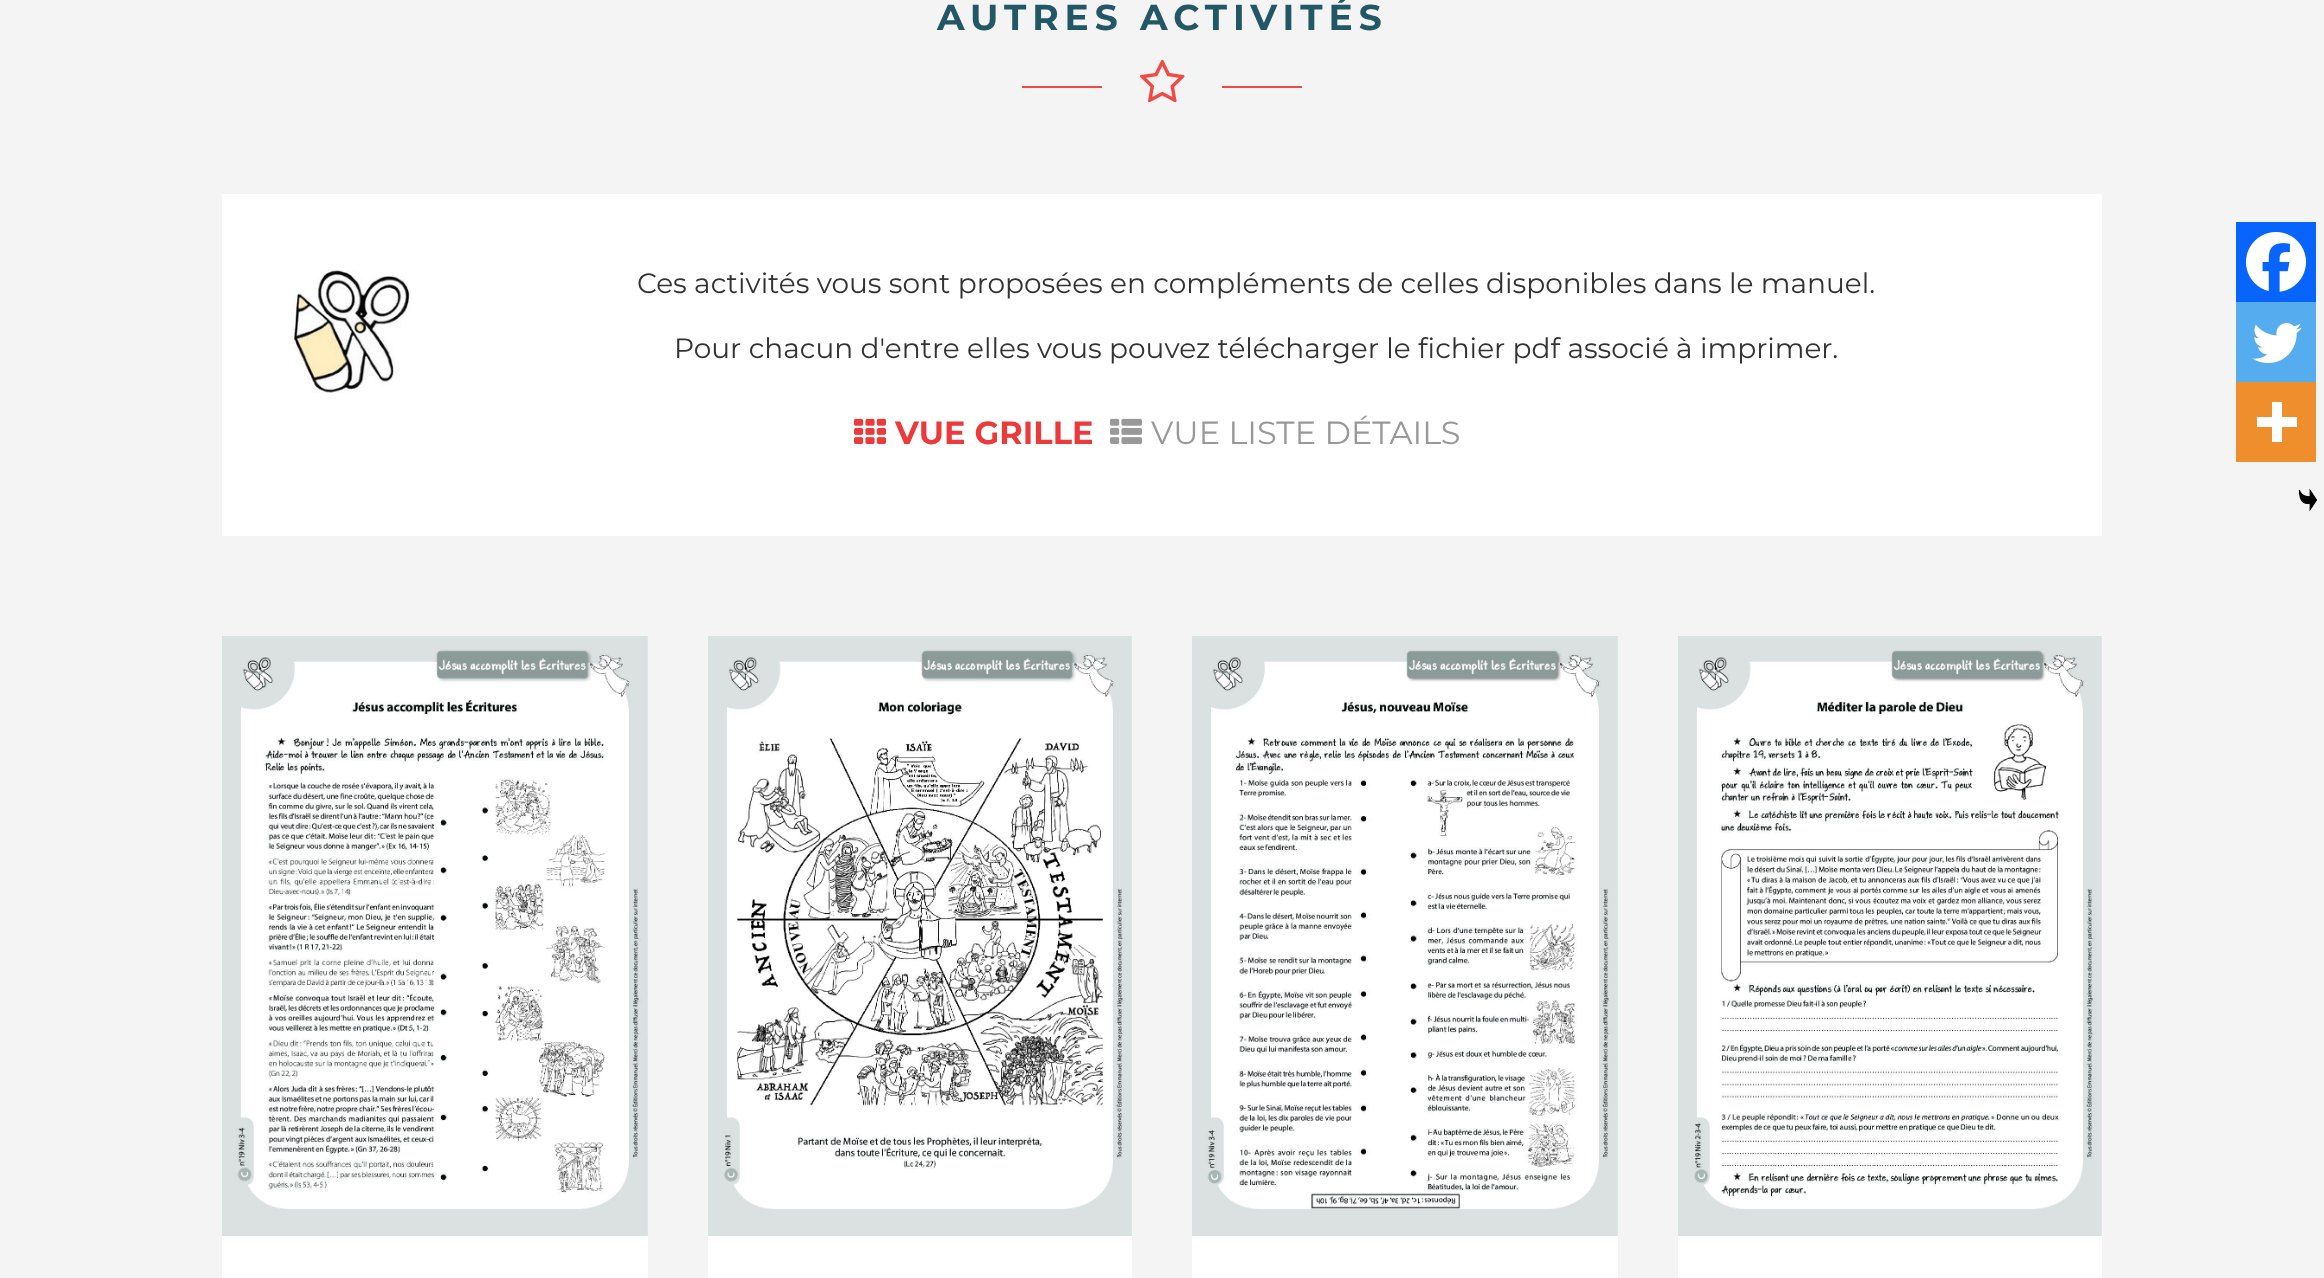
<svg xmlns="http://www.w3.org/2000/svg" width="2324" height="1278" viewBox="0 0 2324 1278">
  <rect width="100%" height="100%" fill="rgb(244,244,244)"/>
  <text x="937" y="30" font-family="Montserrat" font-size="36" font-weight="bold" letter-spacing="6" fill="rgb(34,87,101)">AUTRES ACTIVITÉS</text>
  <rect x="1022" y="86" width="80" height="2" fill="rgb(240,74,68)"/>
  <image x="1140" y="59" width="45" height="44" href="pic1.png"/>
  <rect x="1222" y="86" width="80" height="2" fill="rgb(240,74,68)"/>
  <rect x="222" y="194" width="1880" height="342" fill="rgb(255,255,255)"/>
  <image x="291" y="270" width="121" height="123" href="pic2.png"/>
  <g font-family="Montserrat" font-size="28" fill="rgb(51,51,51)">
    <text x="637" y="293">Ces activités vous sont proposées en compléments de celles disponibles dans le manuel.</text>
    <text x="674" y="358">Pour chacun d'entre elles vous pouvez télécharger le fichier pdf associé à imprimer.</text>
  </g>
  <image x="854" y="418" width="32" height="26" href="pic3.png"/>
  <text x="895" y="444" font-family="Montserrat" font-size="32" font-weight="bold" fill="rgb(236,58,58)">VUE GRILLE</text>
  <image x="1110" y="418" width="32" height="26" href="pic4.png"/>
  <text x="1151" y="444" font-family="Montserrat" font-size="32" fill="rgb(153,153,153)">VUE LISTE DÉTAILS</text>
  <rect x="222" y="1236" width="426" height="42" fill="rgb(255,255,255)"/>
  <image x="222" y="636" width="426" height="600" href="pic5.png"/>
  <rect x="708" y="1236" width="424" height="42" fill="rgb(255,255,255)"/>
  <image x="708" y="636" width="424" height="600" href="pic6.png"/>
  <rect x="1192" y="1236" width="426" height="42" fill="rgb(255,255,255)"/>
  <image x="1192" y="636" width="426" height="600" href="pic7.png"/>
  <rect x="1678" y="1236" width="424" height="42" fill="rgb(255,255,255)"/>
  <image x="1678" y="636" width="424" height="600" href="pic8.png"/>
  <rect x="2236" y="222" width="80" height="80" fill="rgb(7,101,254)"/>
  <image x="2246" y="232" width="60" height="60" href="pic9.png"/>
  <rect x="2236" y="302" width="80" height="80" fill="rgb(85,172,238)"/>
  <image x="2252" y="323" width="50" height="40" href="pic10.png"/>
  <rect x="2236" y="382" width="80" height="80" fill="rgb(238,142,45)"/>
  <path d="M2282 417V402H2272V417H2257V427H2272V442H2282V427H2297V417Z" fill="rgb(255,255,255)" fill-rule="evenodd"/>
  <image x="2298" y="488" width="20" height="24" href="pic11.png"/>
</svg>
